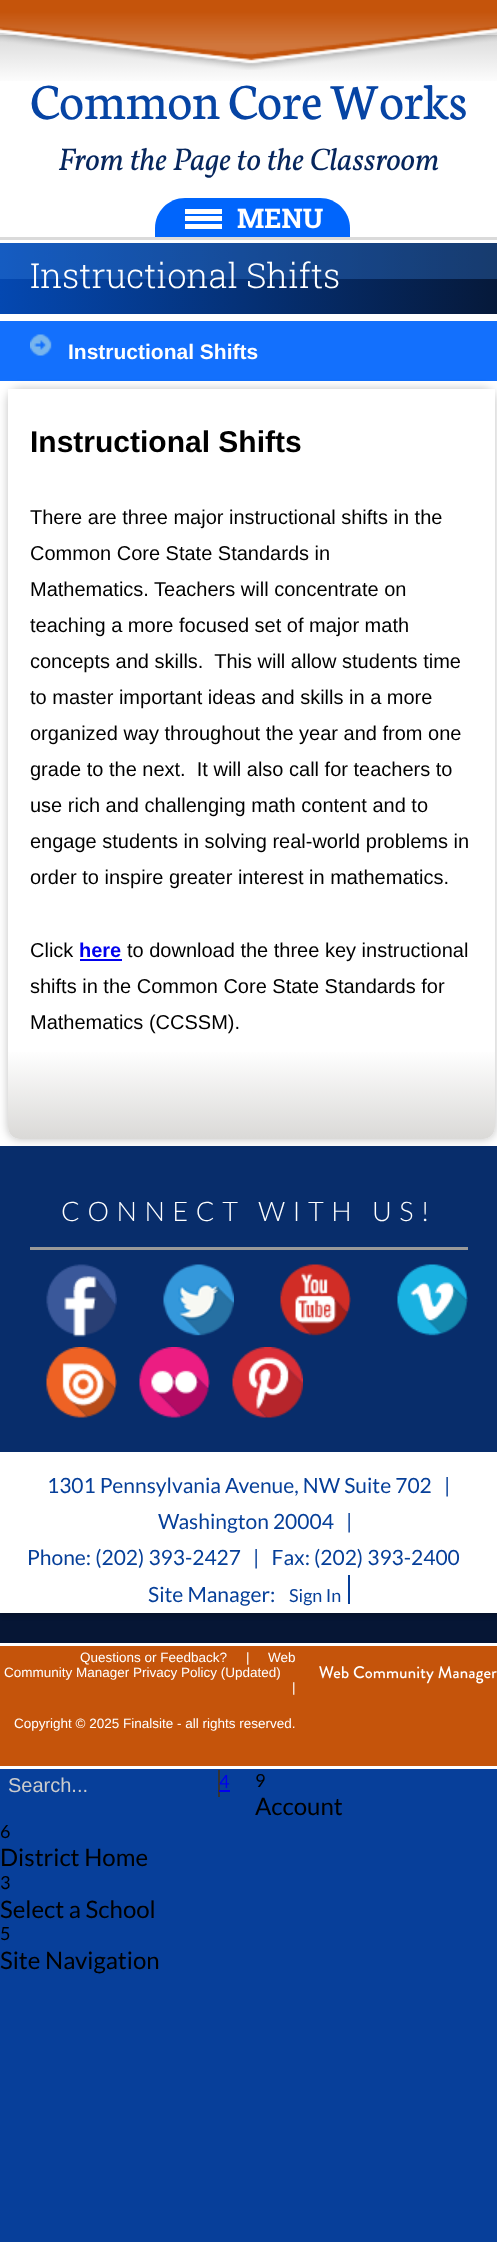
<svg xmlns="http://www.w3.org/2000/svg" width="497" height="2242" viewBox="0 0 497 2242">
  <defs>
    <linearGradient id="g1" gradientUnits="userSpaceOnUse" x1="249" y1="1163" x2="249" y2="1643"><stop offset="0" stop-color="rgb(7,63,154)"/><stop offset="0.75" stop-color="rgb(6,22,53)"/><stop offset="1" stop-color="rgb(6,22,53)"/></linearGradient>
    <linearGradient id="g2" gradientUnits="userSpaceOnUse" x1="249" y1="34" x2="249" y2="237"><stop offset="0" stop-color="rgb(218,218,218)"/><stop offset="0.25" stop-color="rgb(255,255,255)"/></linearGradient>
    <linearGradient id="g3" gradientUnits="userSpaceOnUse" x1="0" y1="278" x2="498" y2="278"><stop offset="0" stop-color="rgb(4,72,177)"/><stop offset="1" stop-color="rgb(6,25,58)"/></linearGradient>
    <linearGradient id="g4" gradientUnits="userSpaceOnUse" x1="251" y1="1052" x2="251" y2="1139"><stop offset="0" stop-color="rgb(254,254,254)"/><stop offset="1" stop-color="rgb(218,217,215)"/></linearGradient>
  </defs>
  <rect width="100%" height="100%" fill="rgb(7,63,154)"/>
  <rect x="0" y="1613" width="497" height="30" fill="url(#g1)"/>
  <rect x="0" y="3" width="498" height="1613" fill="rgba(0,0,0,0.2)" filter="blur(2px)"/>
  <rect x="0" y="31" width="497" height="1582" fill="rgb(255,255,255)"/>
  <rect x="0" y="35" width="497" height="46" fill="url(#g2)"/>
  <rect x="0" y="237" width="497" height="3" fill="rgb(218,218,218)"/>
  <image x="0" y="0" width="497" height="70" href="pic1.png"/>
  <text x="30" y="119" font-family="Neuton" font-size="54" fill="rgb(6,68,164)">Common Core Works</text>
  <text x="58" y="170" font-family="Vollkorn" font-size="31.5" font-style="italic" fill="rgb(6,38,93)">From the Page to the Classroom</text>
  <path d="M185 198H320C336.5 198 350 211.5 350 228V237H155V228C155 211.5 168.5 198 185 198Z" fill="rgb(0,101,252)"/>
  <rect x="185" y="209" width="37" height="5" fill="rgb(255,255,255)"/>
  <rect x="185" y="216" width="37" height="5" fill="rgb(255,255,255)"/>
  <rect x="185" y="224" width="37" height="5" fill="rgb(255,255,255)"/>
  <text x="237" y="228" font-family="Roboto Slab" font-size="27" font-weight="bold" fill="rgb(255,255,255)">MENU</text>
  <rect x="0" y="243" width="497" height="71" fill="url(#g3)"/>
  <rect x="0" y="243" width="497" height="36" fill="rgba(63,138,231,0.3)"/>
  <text x="30" y="288" font-family="Roboto Slab" font-size="34.5" font-weight="300" fill="rgb(255,255,255)">Instructional Shifts</text>
  <rect x="0" y="321" width="497" height="60" fill="rgb(19,112,253)"/>
  <image x="30" y="334" width="22" height="22" href="pic2.png"/>
  <text x="68" y="359" font-family="Liberation Sans" font-size="21" font-weight="bold" fill="rgb(255,255,255)">Instructional Shifts</text>
  <rect x="0" y="1146" width="497" height="306" fill="rgb(8,45,107)"/>
  <rect x="8" y="389" width="487" height="750" rx="12" fill="rgba(0,0,0,0.25)" filter="blur(5px)"/>
  <path d="M8 389H495V1127C495 1133.5 489.5 1139 483 1139H20C13.5 1139 8 1133.5 8 1127Z" fill="rgb(255,255,255)"/>
  <text x="30" y="452" font-family="Liberation Sans" font-size="30" font-weight="bold" fill="rgb(0,0,0)">Instructional Shifts</text>
  <g font-family="Liberation Sans" font-size="20" fill="rgb(0,0,0)">
    <text xml:space="preserve"><tspan x="30" y="524">There are three major instructional shifts in the</tspan><tspan x="30" y="560">Common Core State Standards in</tspan><tspan x="30" y="596">Mathematics. Teachers will concentrate on</tspan><tspan x="30" y="632">teaching a more focused set of major math</tspan><tspan x="30" y="668">concepts and skills.  This will allow students time</tspan><tspan x="30" y="704">to master important ideas and skills in a more</tspan><tspan x="30" y="740">organized way throughout the year and from one</tspan><tspan x="30" y="776">grade to the next.  It will also call for teachers to</tspan><tspan x="30" y="812">use rich and challenging math content and to</tspan><tspan x="30" y="848">engage students in solving real-world problems in</tspan><tspan x="30" y="884">order to inspire greater interest in mathematics.</tspan></text>
    <text x="30" y="957">Click</text>
  </g>
  <text x="79" y="957" font-family="Liberation Sans" font-size="20" font-weight="bold" fill="rgb(0,0,238)">here</text>
  <rect x="80" y="959" width="42" height="2" fill="rgb(0,0,238)"/>
  <g font-family="Liberation Sans" font-size="20" fill="rgb(0,0,0)">
    <text x="127" y="957">to download the three key instructional</text>
    <text>
      <tspan x="30" y="993">shifts in the Common Core State Standards for</tspan>
      <tspan x="30" y="1029">Mathematics (CCSSM).</tspan>
    </text>
  </g>
  <path d="M8 1052H495V1127C495 1133.5 489.5 1139 483 1139H20C13.5 1139 8 1133.5 8 1127Z" fill="url(#g4)"/>
  <text x="61" y="1221" font-family="Lato" font-size="27" font-weight="300" letter-spacing="7.5" fill="rgb(255,255,255)">CONNECT WITH US!</text>
  <rect x="30" y="1247" width="438" height="3" fill="rgb(153,153,153)"/>
  <image x="46" y="1264" width="71" height="73" href="pic3.png"/>
  <image x="163" y="1264" width="71" height="72" href="pic4.png"/>
  <image x="280" y="1264" width="71" height="72" href="pic5.png"/>
  <image x="397" y="1264" width="71" height="72" href="pic6.png"/>
  <image x="46" y="1347" width="71" height="71" href="pic7.png"/>
  <image x="139" y="1347" width="71" height="71" href="pic8.png"/>
  <image x="232" y="1347" width="71" height="71" href="pic9.png"/>
  <g font-family="Lato" font-size="21" fill="rgb(6,63,153)">
    <text x="47" y="1493" xml:space="preserve">1301 Pennsylvania Avenue, NW Suite 702   |</text>
    <text x="158" y="1529" xml:space="preserve">Washington 20004   |</text>
    <text x="27" y="1565" xml:space="preserve">Phone: (202) 393-2427   |   Fax: (202) 393-2400</text>
    <text x="148" y="1602">Site Manager:</text>
  </g>
  <rect x="348" y="1575" width="2" height="29" fill="rgb(6,63,153)"/>
  <text x="289" y="1602" font-family="Lato" font-size="18" fill="rgb(6,63,153)">Sign In</text>
  <rect x="0" y="1646" width="497" height="120" fill="rgb(197,84,11)"/>
  <rect x="0" y="1643" width="497" height="3" fill="rgb(255,255,255)"/>
  <rect x="0" y="1766" width="497" height="3" fill="rgb(255,255,255)"/>
  <g font-family="Liberation Sans" font-size="13.5" fill="rgb(255,255,255)">
    <text x="80" y="1662">Questions or Feedback?</text>
    <text x="246" y="1662">|</text>
    <text x="268" y="1662">Web</text>
    <text x="4" y="1677">Community Manager Privacy Policy (Updated)</text>
    <text x="292" y="1692">|</text>
  </g>
  <image x="319" y="1666" width="178" height="18" href="pic10.png"/>
  <text x="14" y="1728" font-family="Liberation Sans" font-size="13.5" fill="rgb(255,255,255)">Copyright © 2025 Finalsite - all rights reserved.</text>
  <text x="8" y="1792" font-family="Liberation Sans" font-size="20" fill="rgb(204,204,204)">Search...</text>
  <rect x="218" y="1770" width="2" height="27" fill="rgb(51,51,51)"/>
  <text x="219" y="1788" font-family="Lato" font-size="18" fill="rgb(0,0,238)">4</text>
  <rect x="219" y="1790" width="11" height="2" fill="rgb(0,0,238)"/>
  <text x="255" y="1787" font-family="Lato" font-size="18" fill="rgb(0,0,0)">9</text>
  <text x="255" y="1815" font-family="Lato" font-size="24" fill="rgb(0,0,0)">Account</text>
  <text x="0" y="1838" font-family="Lato" font-size="18" fill="rgb(0,0,0)">6</text>
  <text x="0" y="1866" font-family="Lato" font-size="24" fill="rgb(0,0,0)">District Home</text>
  <text x="0" y="1889" font-family="Lato" font-size="18" fill="rgb(0,0,0)">3</text>
  <text x="0" y="1918" font-family="Lato" font-size="24" fill="rgb(0,0,0)">Select a School</text>
  <text x="0" y="1940" font-family="Lato" font-size="18" fill="rgb(0,0,0)">5</text>
  <text x="0" y="1969" font-family="Lato" font-size="24" fill="rgb(0,0,0)">Site Navigation</text>
</svg>
